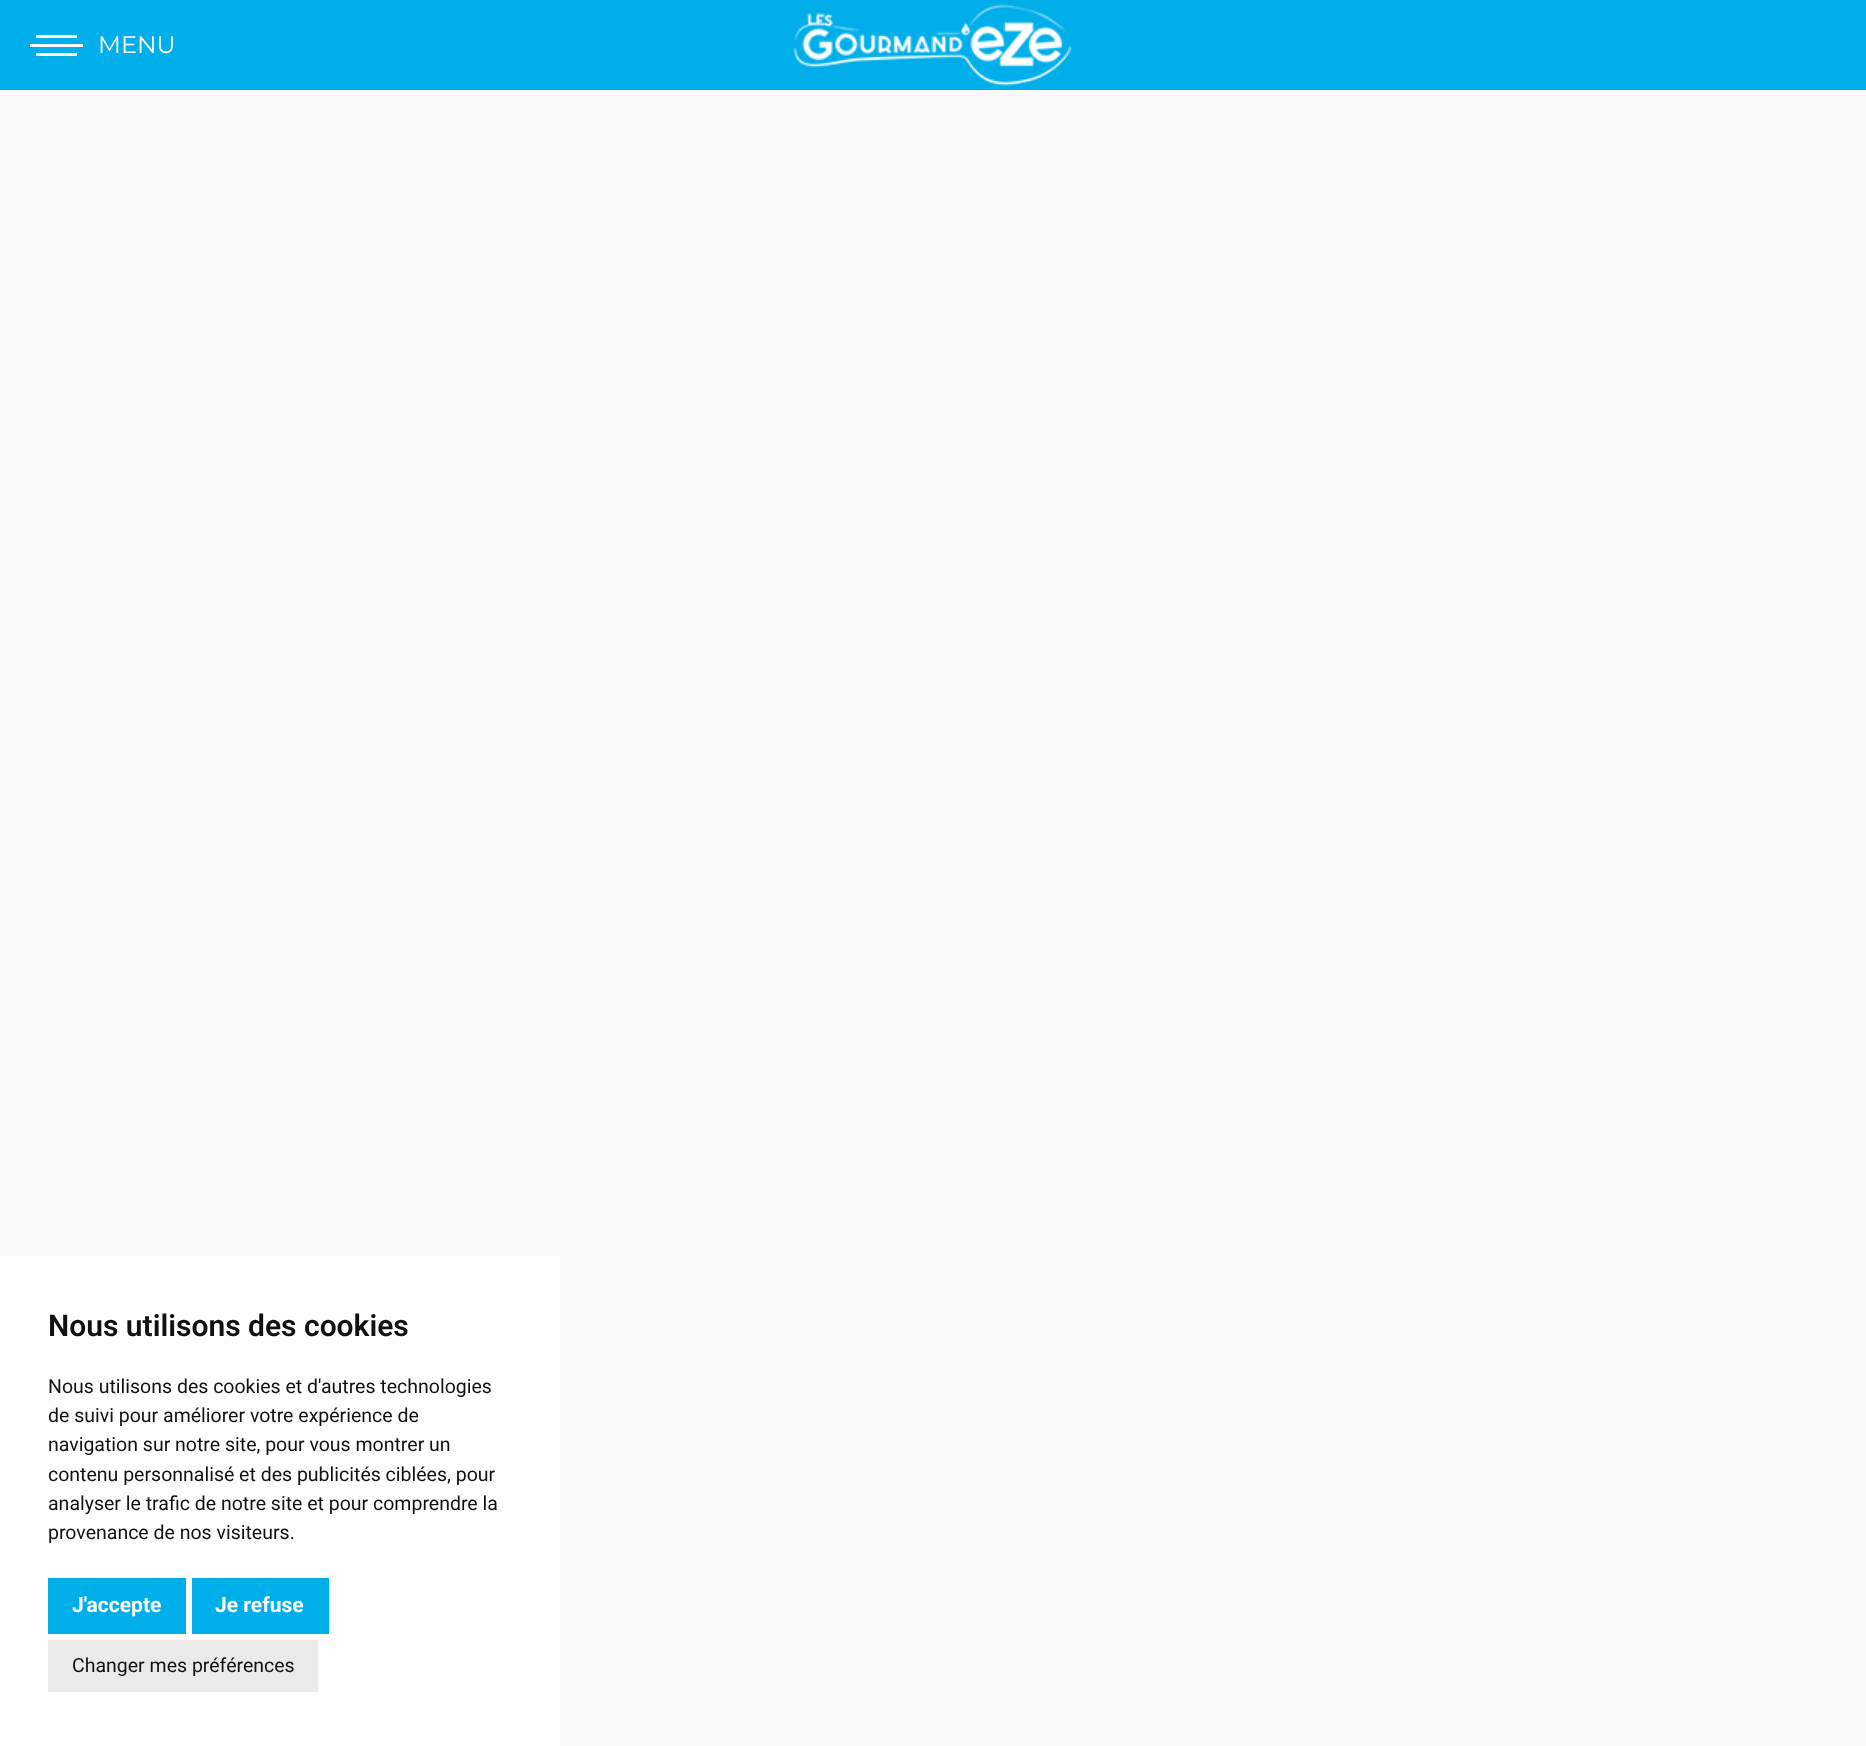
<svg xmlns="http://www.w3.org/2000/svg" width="1866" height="1746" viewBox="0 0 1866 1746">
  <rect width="100%" height="100%" fill="rgb(249,249,249)"/>
  <rect x="0" y="0" width="1866" height="90" fill="rgb(0,174,234)"/>
  <rect x="36" y="35" width="41" height="3" fill="rgb(255,255,255)"/>
  <rect x="30" y="44" width="53" height="3" fill="rgb(255,255,255)"/>
  <rect x="36" y="53" width="41" height="3" fill="rgb(255,255,255)"/>
  <text x="98" y="53" font-family="Montserrat" font-size="24" fill="rgb(255,255,255)">MENU</text>
  <image x="793" y="4" width="279" height="82" href="pic1.png"/>
  <rect x="0" y="1256" width="560" height="490" fill="rgb(254,254,254)"/>
  <text x="48" y="1336" font-family="Roboto" font-size="30" font-weight="600" fill="rgb(17,17,17)">Nous utilisons des cookies</text>
  <g font-family="Roboto" font-size="19.5" fill="rgb(17,17,17)">
    <text>
      <tspan x="48" y="1393">Nous utilisons des cookies et d'autres technologies</tspan>
      <tspan x="48" y="1422">de suivi pour améliorer votre expérience de</tspan>
      <tspan x="48" y="1451">navigation sur notre site, pour vous montrer un</tspan>
      <tspan x="48" y="1481">contenu personnalisé et des publicités ciblées, pour</tspan>
      <tspan x="48" y="1510">analyser le trafic de notre site et pour comprendre la</tspan>
      <tspan x="48" y="1539">provenance de nos visiteurs.</tspan>
    </text>
  </g>
  <rect x="48" y="1578" width="138" height="56" fill="rgb(0,174,234)"/>
  <text x="72" y="1612" font-family="Roboto" font-size="21" font-weight="bold" fill="rgb(255,255,255)">J'accepte</text>
  <rect x="192" y="1578" width="137" height="56" fill="rgb(0,174,234)"/>
  <text x="215" y="1612" font-family="Roboto" font-size="21" font-weight="bold" fill="rgb(255,255,255)">Je refuse</text>
  <rect x="48" y="1640" width="270" height="52" fill="rgb(234,234,234)"/>
  <text x="72" y="1672" font-family="Roboto" font-size="19.5" fill="rgb(17,17,17)">Changer mes préférences</text>
</svg>
